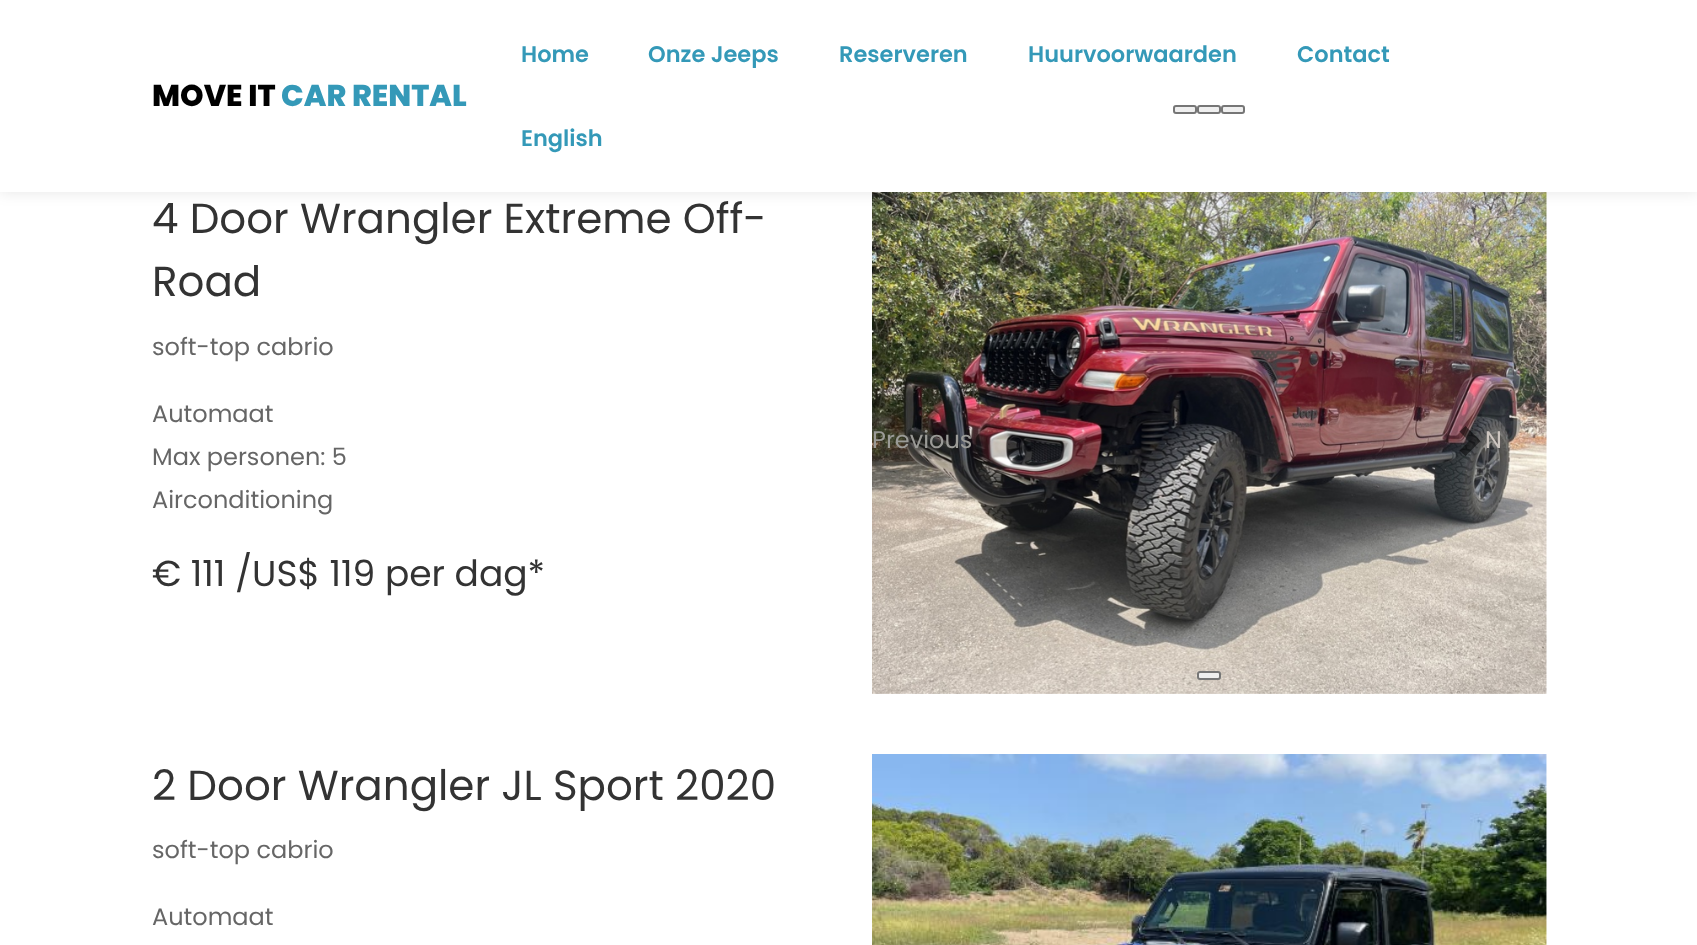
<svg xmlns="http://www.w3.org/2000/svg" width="1697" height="945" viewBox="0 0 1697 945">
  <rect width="100%" height="100%" fill="rgb(255,255,255)"/>
  <image x="872" y="192" width="675" height="502" href="pic1.png"/>
  <rect x="0" y="0" width="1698" height="192" fill="rgba(0,0,0,0.1)" filter="blur(7.5px)"/>
  <rect x="0" y="0" width="1697" height="192" fill="rgb(255,255,255)"/>
  <text x="152" y="106" font-family="Poppins" font-size="30" font-weight="800" fill="rgb(0,0,0)">MOVE IT</text>
  <text x="281" y="106" font-family="Poppins" font-size="30" font-weight="800" fill="rgb(52,153,184)">CAR RENTAL</text>
  <g font-family="Poppins" font-size="22.5" font-weight="600" fill="rgb(52,153,184)">
    <text x="521" y="62">Home</text>
    <text x="648" y="62">Onze Jeeps</text>
    <text x="839" y="62">Reserveren</text>
    <text x="1028" y="62">Huurvoorwaarden</text>
    <text x="1297" y="62">Contact</text>
    <text x="521" y="146">English</text>
  </g>
  <rect x="1174" y="106" width="22" height="7" rx="2" fill="rgb(239,239,239)" stroke="rgb(118,118,118)" stroke-width="2"/>
  <rect x="1198" y="106" width="22" height="7" rx="2" fill="rgb(239,239,239)" stroke="rgb(118,118,118)" stroke-width="2"/>
  <rect x="1222" y="106" width="22" height="7" rx="2" fill="rgb(239,239,239)" stroke="rgb(118,118,118)" stroke-width="2"/>
  <g font-family="Poppins" font-size="42" fill="rgb(51,51,51)">
    <text>
      <tspan x="152" y="233">4 Door Wrangler Extreme Off-</tspan>
      <tspan x="152" y="296">Road</tspan>
    </text>
  </g>
  <g font-family="Poppins" font-size="24" fill="rgb(102,102,102)">
    <text x="152" y="355">soft-top cabrio</text>
    <text>
      <tspan x="152" y="422">Automaat</tspan>
      <tspan x="152" y="465">Max personen: 5</tspan>
      <tspan x="152" y="508">Airconditioning</tspan>
    </text>
  </g>
  <text x="152" y="586" font-family="Poppins" font-size="36" fill="rgb(51,51,51)">€ 111 /US$ 119 per dag*</text>
  <text x="872" y="448" font-family="Poppins" font-size="24" fill="rgb(155,155,151)">Previous</text>
  <path d="M1465.5 426L1459.5 431.5L1469 441L1459.5 450.5L1465.5 456L1480.5 441Z" fill="rgba(0,0,0,0.5)"/>
  <text x="1485" y="448" font-family="Poppins" font-size="24" fill="rgb(205,197,191)">N</text>
  <rect x="1198" y="672" width="22" height="7" rx="2" fill="rgb(239,239,239)" stroke="rgb(118,118,118)" stroke-width="2"/>
  <text x="152" y="800" font-family="Poppins" font-size="42" fill="rgb(51,51,51)">2 Door Wrangler JL Sport 2020</text>
  <g font-family="Poppins" font-size="24" fill="rgb(102,102,102)">
    <text x="152" y="858">soft-top cabrio</text>
    <text x="152" y="925">Automaat</text>
  </g>
  <image x="872" y="754" width="675" height="191" href="pic2.png"/>
</svg>
